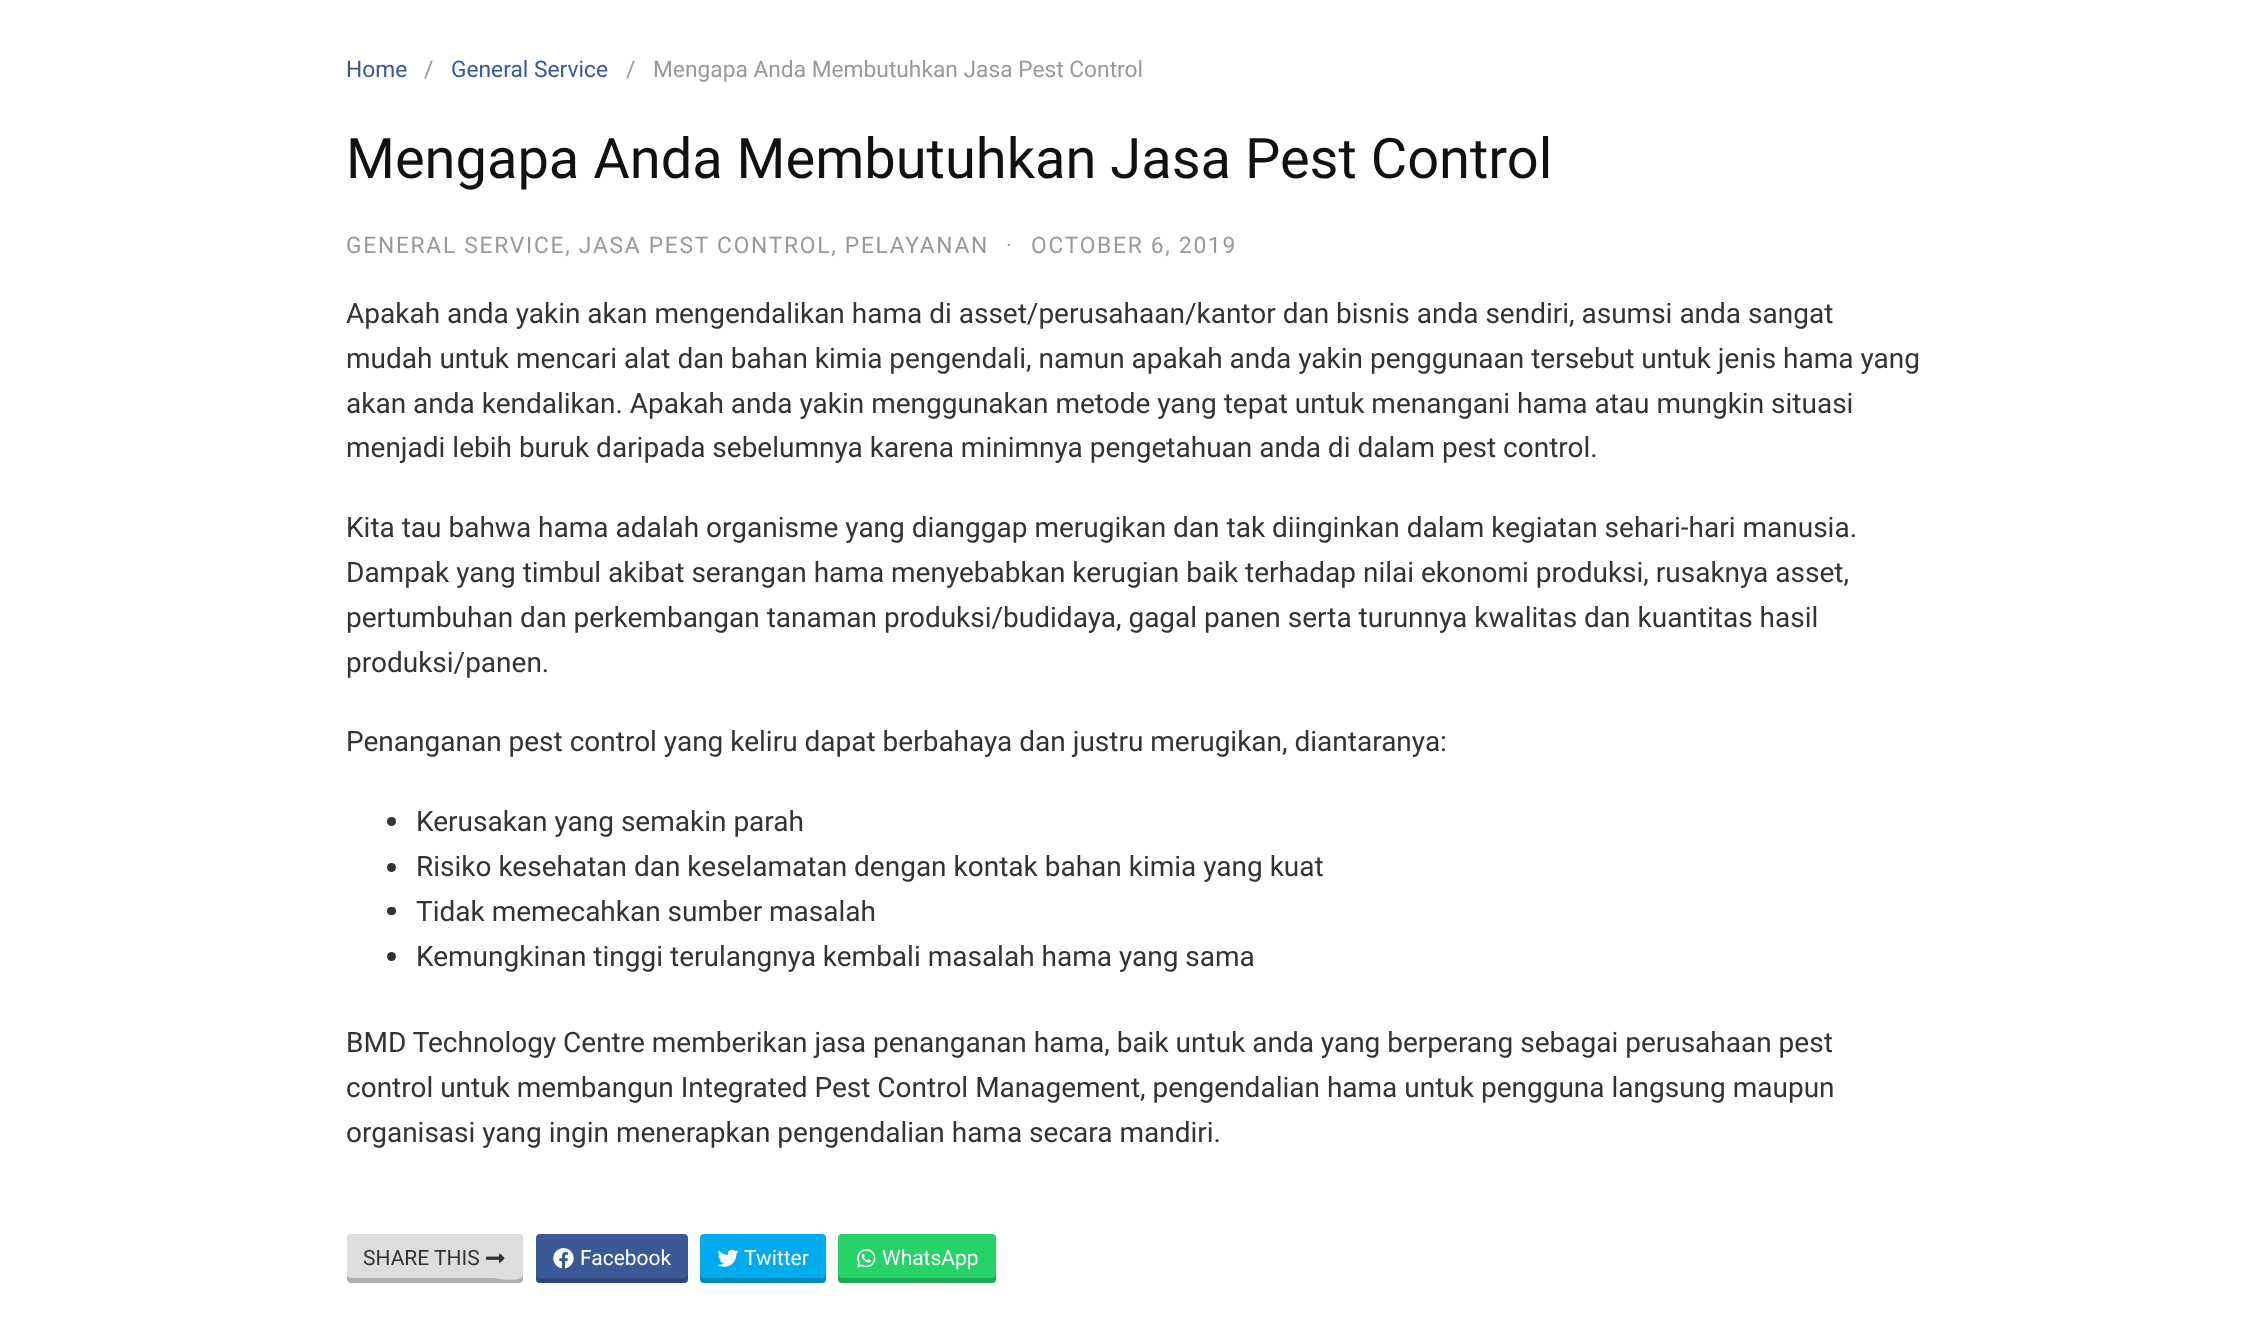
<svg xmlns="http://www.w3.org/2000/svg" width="2265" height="1343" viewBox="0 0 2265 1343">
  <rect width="100%" height="100%" fill="rgb(255,255,255)"/>
  <text x="346" y="77" font-family="Roboto" font-size="22.75" fill="rgb(54,88,153)">Home</text>
  <text x="424" y="77" font-family="Roboto" font-size="22.75" fill="rgb(153,153,153)">/</text>
  <text x="451" y="77" font-family="Roboto" font-size="22.75" fill="rgb(54,88,153)">General Service</text>
  <g font-family="Roboto" font-size="22.75" fill="rgb(153,153,153)">
    <text x="626" y="77">/</text>
    <text x="653" y="77">Mengapa Anda Membutuhkan Jasa Pest Control</text>
  </g>
  <text x="346" y="178" font-family="Roboto" font-size="56" fill="rgb(17,17,17)">Mengapa Anda Membutuhkan Jasa Pest Control</text>
  <g font-family="Roboto" font-size="22.75" letter-spacing="1.75" fill="rgb(153,153,153)">
    <text x="346" y="253">GENERAL SERVICE, JASA PEST CONTROL, PELAYANAN</text>
    <text x="1006" y="253">·</text>
    <text x="1031" y="253">OCTOBER 6, 2019</text>
  </g>
  <g font-family="Roboto" font-size="28" fill="rgb(51,51,51)">
    <text>
      <tspan x="346" y="323">Apakah anda yakin akan mengendalikan hama di asset/perusahaan/kantor dan bisnis anda sendiri, asumsi anda sangat</tspan>
      <tspan x="346" y="368">mudah untuk mencari alat dan bahan kimia pengendali, namun apakah anda yakin penggunaan tersebut untuk jenis hama yang</tspan>
      <tspan x="346" y="413">akan anda kendalikan. Apakah anda yakin menggunakan metode yang tepat untuk menangani hama atau mungkin situasi</tspan>
      <tspan x="346" y="457">menjadi lebih buruk daripada sebelumnya karena minimnya pengetahuan anda di dalam pest control.</tspan>
    </text>
    <text>
      <tspan x="346" y="537">Kita tau bahwa hama adalah organisme yang dianggap merugikan dan tak diinginkan dalam kegiatan sehari-hari manusia.</tspan>
      <tspan x="346" y="582">Dampak yang timbul akibat serangan hama menyebabkan kerugian baik terhadap nilai ekonomi produksi, rusaknya asset,</tspan>
      <tspan x="346" y="627">pertumbuhan dan perkembangan tanaman produksi/budidaya, gagal panen serta turunnya kwalitas dan kuantitas hasil</tspan>
      <tspan x="346" y="672">produksi/panen.</tspan>
    </text>
    <text x="346" y="751">Penanganan pest control yang keliru dapat berbahaya dan justru merugikan, diantaranya:</text>
  </g>
  <circle cx="391.5" cy="821.5" r="4.5" fill="rgb(51,51,51)"/>
  <text x="416" y="831" font-family="Roboto" font-size="28" fill="rgb(51,51,51)">Kerusakan yang semakin parah</text>
  <circle cx="391.5" cy="867.5" r="4.5" fill="rgb(51,51,51)"/>
  <text x="416" y="876" font-family="Roboto" font-size="28" fill="rgb(51,51,51)">Risiko kesehatan dan keselamatan dengan kontak bahan kimia yang kuat</text>
  <rect x="387" y="907" width="9" height="8" rx="4" fill="rgb(51,51,51)"/>
  <text x="416" y="921" font-family="Roboto" font-size="28" fill="rgb(51,51,51)">Tidak memecahkan sumber masalah</text>
  <circle cx="391.5" cy="956.5" r="4.5" fill="rgb(51,51,51)"/>
  <g font-family="Roboto" font-size="28" fill="rgb(51,51,51)">
    <text x="416" y="966">Kemungkinan tinggi terulangnya kembali masalah hama yang sama</text>
    <text>
      <tspan x="346" y="1052">BMD Technology Centre memberikan jasa penanganan hama, baik untuk anda yang berperang sebagai perusahaan pest</tspan>
      <tspan x="346" y="1097">control untuk membangun Integrated Pest Control Management, pengendalian hama untuk pengguna langsung maupun</tspan>
      <tspan x="346" y="1142">organisasi yang ingin menerapkan pengendalian hama secara mandiri.</tspan>
    </text>
  </g>
  <rect x="347" y="1234" width="176" height="49" rx="4" fill="rgb(221,221,221)"/>
  <path d="M347 1276V1279C347 1281 349 1283 351 1283H519C521 1283 523 1281 523 1279V1274C523 1284 497 1278 492 1278H350Z" fill="rgba(0,0,0,0.2)"/>
  <text x="363" y="1265" font-family="Roboto" font-size="21" fill="rgb(51,51,51)">SHARE THIS</text>
  <image x="486" y="1253" width="19" height="10" href="pic1.png"/>
  <rect x="536" y="1234" width="152" height="49" rx="4" fill="rgb(59,89,151)"/>
  <path d="M536 1274V1279C536 1281 538 1283 540 1283H684C686 1283 688 1281 688 1279V1274C688 1276 686 1278 684 1278H539C537 1278 536 1276 536 1274Z" fill="rgba(0,0,0,0.2)"/>
  <image x="553" y="1248" width="21" height="21" href="pic2.png"/>
  <text x="580" y="1265" font-family="Roboto" font-size="21" fill="rgb(255,255,255)">Facebook</text>
  <rect x="700" y="1234" width="126" height="49" rx="4" fill="rgb(0,172,237)"/>
  <path d="M700 1274V1279C700 1281 702 1283 704 1283H822C824 1283 826 1281 826 1279V1274C826 1276 824 1278 822 1278H704C702 1278 700 1276 700 1274Z" fill="rgba(0,0,0,0.2)"/>
  <image x="718" y="1249" width="21" height="18" href="pic3.png"/>
  <text x="744" y="1265" font-family="Roboto" font-size="21" fill="rgb(255,255,255)">Twitter</text>
  <rect x="838" y="1234" width="158" height="49" rx="4" fill="rgb(37,211,102)"/>
  <path d="M838 1274V1279C838 1281 840 1283 842 1283H992C994 1283 996 1281 996 1279V1274C996 1276 994 1278 992 1278H842C840 1278 838 1276 838 1274Z" fill="rgba(0,0,0,0.2)"/>
  <image x="857" y="1249" width="19" height="19" href="pic4.png"/>
  <text x="882" y="1265" font-family="Roboto" font-size="21" fill="rgb(255,255,255)">WhatsApp</text>
</svg>
